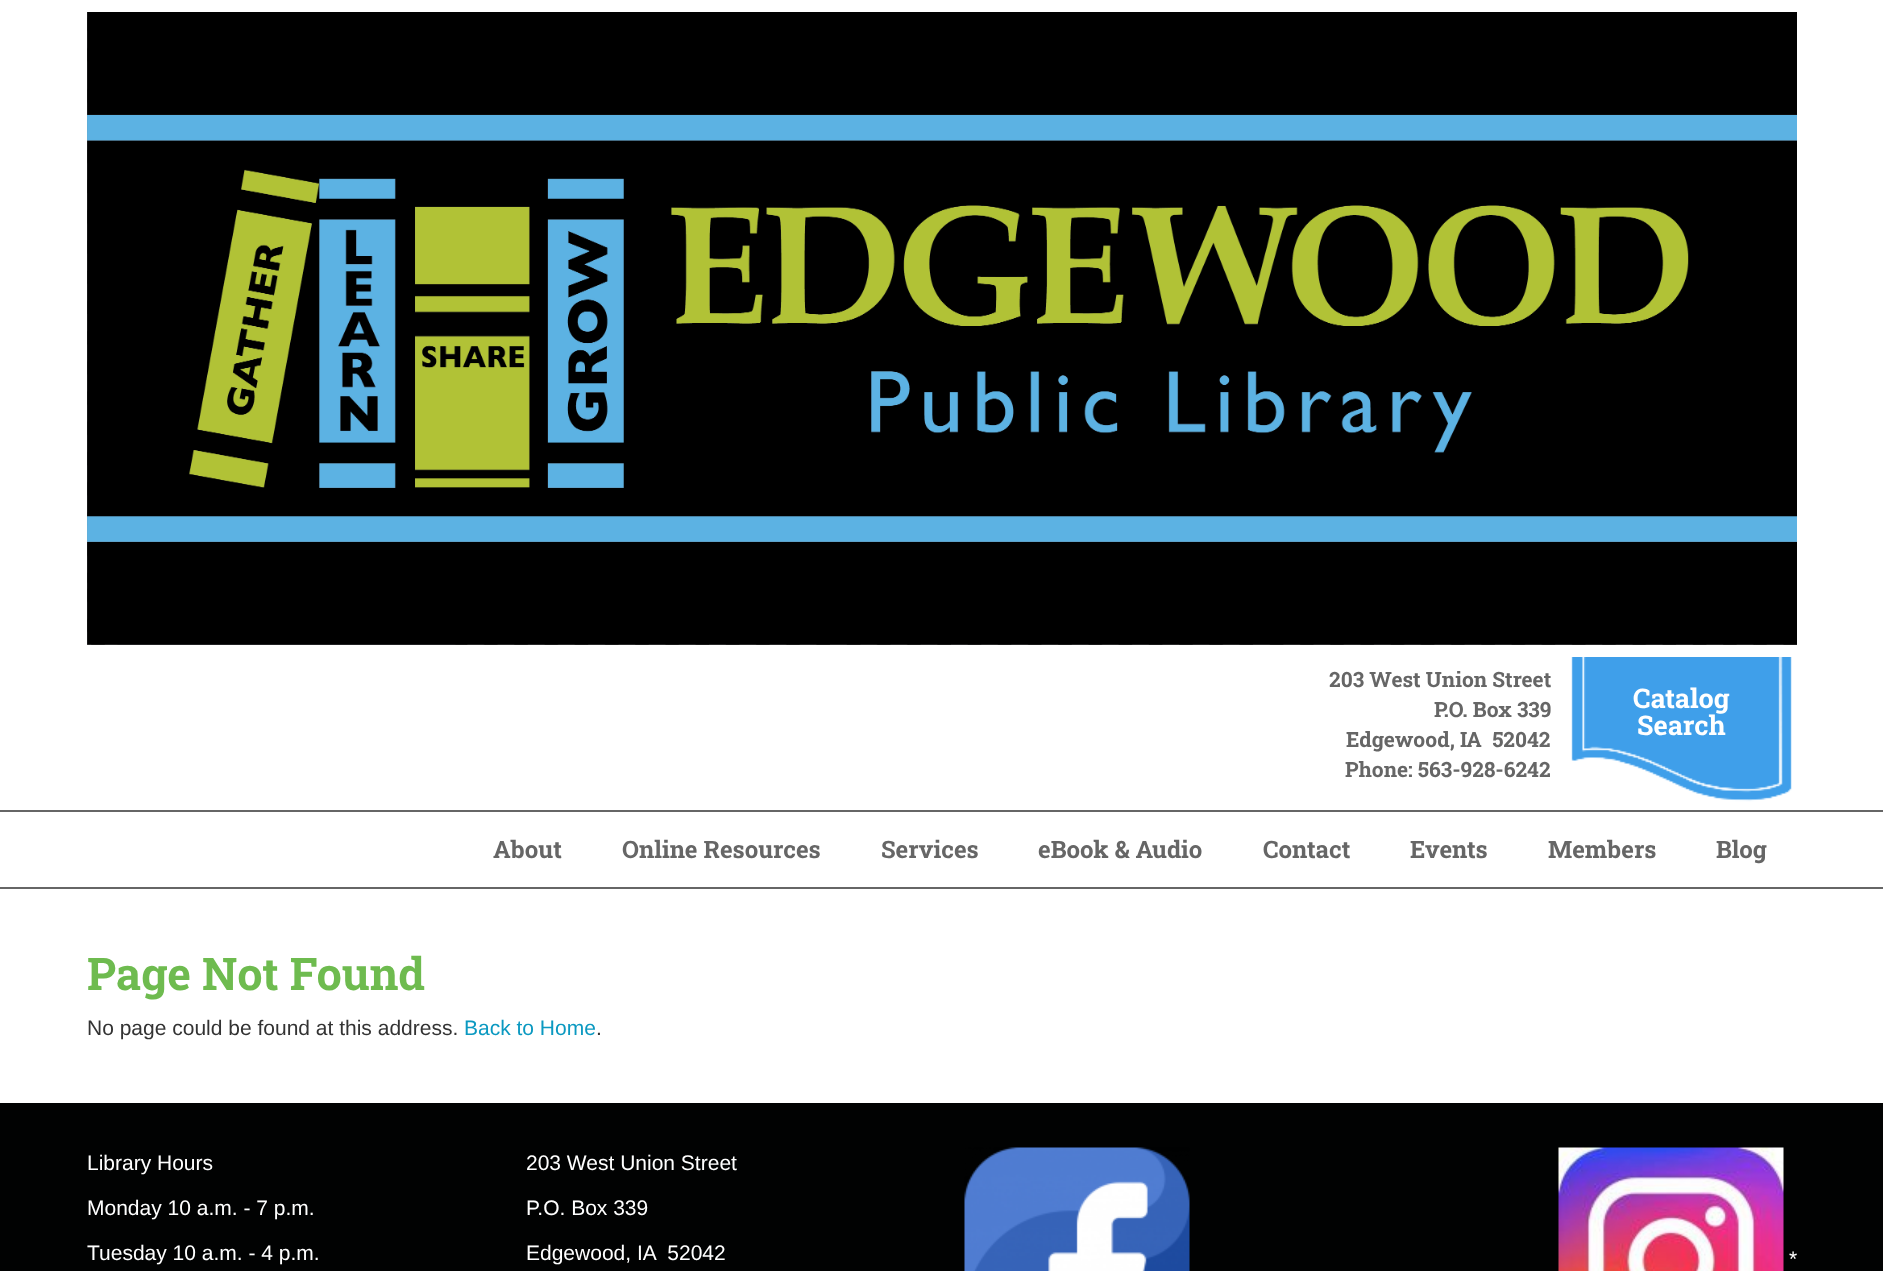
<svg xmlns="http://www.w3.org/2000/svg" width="1883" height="1271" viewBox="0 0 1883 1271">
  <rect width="100%" height="100%" fill="rgb(255,255,255)"/>
  <image x="87" y="12" width="1710" height="633" href="pic1.png"/>
  <g font-family="Roboto Slab" font-size="21" font-weight="bold" fill="rgb(102,102,102)">
    <text x="1329" y="687">203 West Union Street</text>
    <text x="1434" y="717">P.O. Box 339</text>
    <text x="1346" y="747" xml:space="preserve">Edgewood, IA  52042</text>
    <text x="1345" y="777">Phone: 563-928-6242</text>
  </g>
  <rect x="1571" y="657" width="221" height="145" fill="rgb(63,159,234)"/>
  <image x="1566" y="657" width="231" height="153" href="pic2.png"/>
  <g font-family="Roboto Slab" font-size="27" font-weight="bold" fill="rgb(255,255,255)">
    <text x="1633" y="708">Catalog</text>
    <text x="1637" y="735">Search</text>
  </g>
  <rect x="0" y="810" width="1883" height="2" fill="rgb(102,102,102)"/>
  <rect x="0" y="887" width="1883" height="2" fill="rgb(102,102,102)"/>
  <g font-family="Roboto Slab" font-size="24" font-weight="bold" fill="rgb(102,102,102)">
    <text x="493" y="858">About</text>
    <text x="622" y="858">Online Resources</text>
    <text x="881" y="858">Services</text>
    <text x="1038" y="858">eBook &amp; Audio</text>
    <text x="1263" y="858">Contact</text>
    <text x="1410" y="858">Events</text>
    <text x="1548" y="858">Members</text>
    <text x="1716" y="858">Blog</text>
  </g>
  <text x="87" y="990" font-family="Roboto Slab" font-size="45" font-weight="bold" fill="rgb(110,187,79)">Page Not Found</text>
  <text x="87" y="1035" font-family="Liberation Sans" font-size="21" fill="rgb(51,51,51)">No page could be found at this address.</text>
  <text x="464" y="1035" font-family="Liberation Sans" font-size="21" fill="rgb(11,153,193)">Back to Home</text>
  <text x="596" y="1035" font-family="Liberation Sans" font-size="21" fill="rgb(51,51,51)">.</text>
  <rect x="0" y="1103" width="1883" height="168" fill="rgb(1,2,2)"/>
  <g font-family="Liberation Sans" font-size="21" fill="rgb(255,255,255)">
    <text x="87" y="1170">Library Hours</text>
    <text x="87" y="1215">Monday 10 a.m. - 7 p.m.</text>
    <text x="87" y="1260">Tuesday 10 a.m. - 4 p.m.</text>
    <text x="526" y="1170">203 West Union Street</text>
    <text x="526" y="1215">P.O. Box 339</text>
    <text x="526" y="1260" xml:space="preserve">Edgewood, IA  52042</text>
  </g>
  <image x="964" y="1147" width="226" height="124" href="pic3.png"/>
  <image x="1558" y="1147" width="226" height="124" href="pic4.png"/>
  <text x="1789" y="1266" font-family="Liberation Sans" font-size="21" fill="rgb(255,255,255)">*</text>
</svg>
